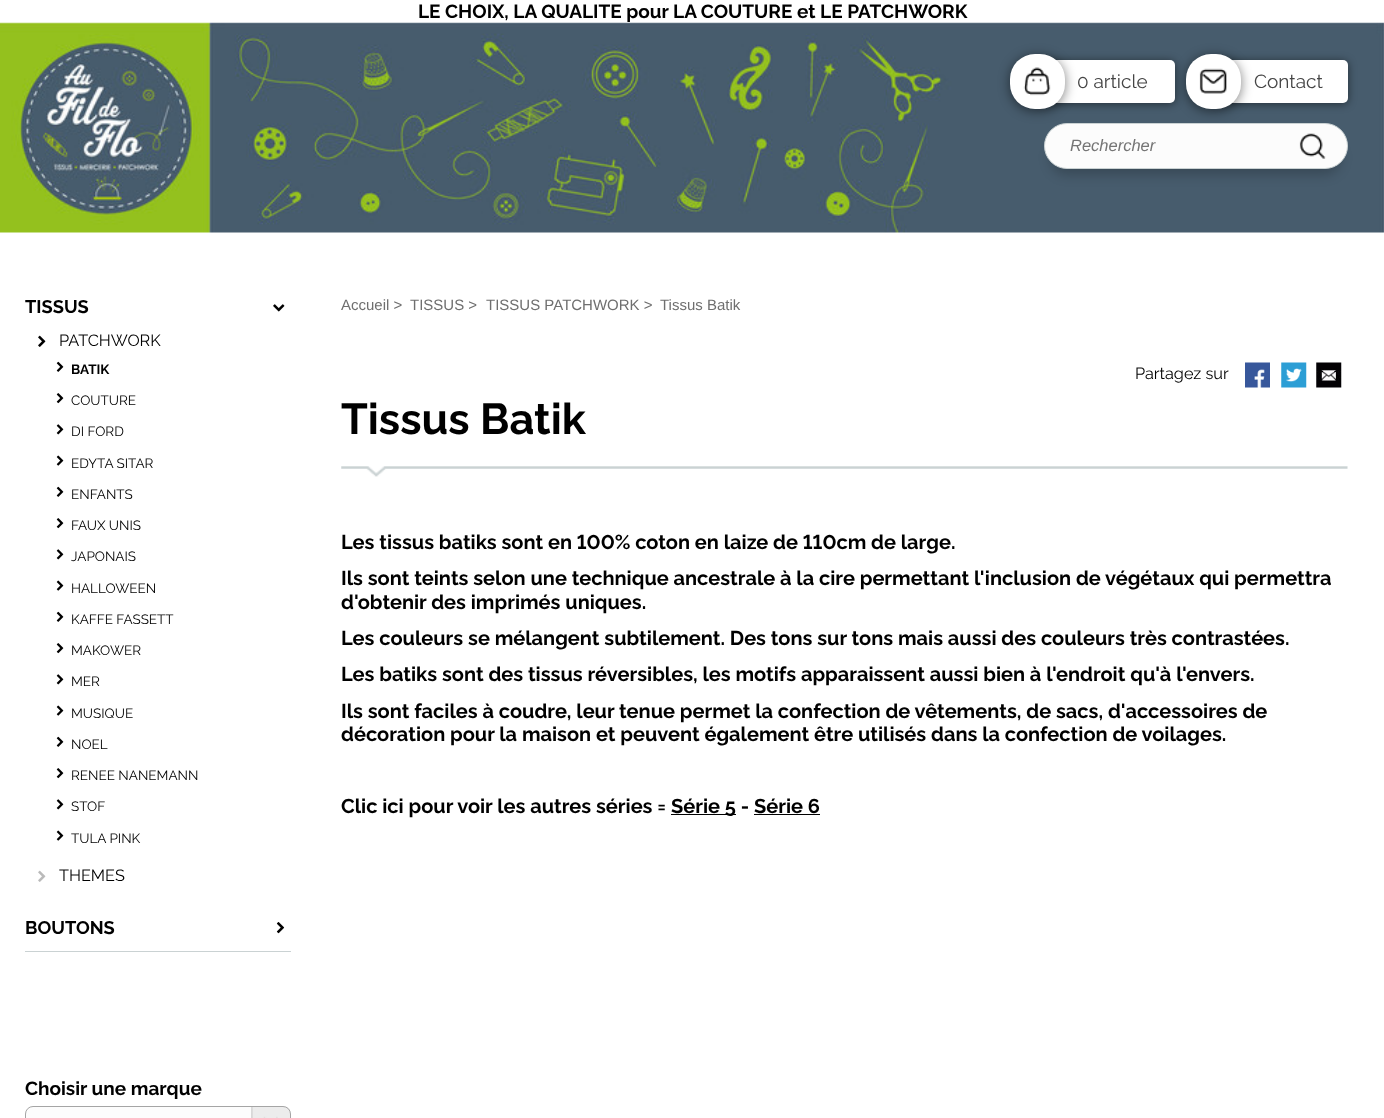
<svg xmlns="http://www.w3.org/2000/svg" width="1384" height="1118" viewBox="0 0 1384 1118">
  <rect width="100%" height="100%" fill="rgb(255,255,255)"/>
  <text x="418" y="18" font-family="Raleway" font-size="19" font-weight="bold" fill="rgb(0,0,0)">LE CHOIX, LA QUALITE pour LA COUTURE et LE PATCHWORK</text>
  <image x="0" y="22" width="1384" height="211" href="pic1.png"/>
  <rect x="1040" y="61" width="135" height="43" rx="5" fill="rgba(0,0,0,0.5)" filter="blur(4.5px)"/>
  <rect x="1040" y="60" width="135" height="43" rx="5" fill="rgb(255,255,255)"/>
  <rect x="1010" y="56" width="55" height="55" rx="25" fill="rgba(0,0,0,0.5)" filter="blur(6px)"/>
  <rect x="1010" y="54" width="55" height="55" rx="25" fill="rgb(255,255,255)"/>
  <image x="1023" y="67" width="28" height="29" href="pic2.png"/>
  <text x="1077" y="88" font-family="Raleway" font-size="19" fill="rgb(69,69,69)">0 article</text>
  <rect x="1216" y="61" width="132" height="43" rx="5" fill="rgba(0,0,0,0.5)" filter="blur(4.5px)"/>
  <rect x="1216" y="60" width="132" height="43" rx="5" fill="rgb(255,255,255)"/>
  <rect x="1186" y="56" width="55" height="55" rx="25" fill="rgba(0,0,0,0.5)" filter="blur(6px)"/>
  <rect x="1186" y="54" width="55" height="55" rx="25" fill="rgb(255,255,255)"/>
  <image x="1199" y="68" width="28" height="26" href="pic3.png"/>
  <text x="1254" y="88" font-family="Raleway" font-size="19" fill="rgb(69,69,69)">Contact</text>
  <rect x="1050" y="141" width="291" height="34" rx="17" fill="rgba(0,0,0,0.2)" filter="blur(6px)"/>
  <rect x="1044.5" y="123.5" width="303" height="45" rx="22.5" fill="rgb(252,252,252)" stroke="rgb(202,210,211)"/>
  <text x="1070" y="151" font-family="Liberation Sans" font-size="16.5" font-style="italic" fill="rgb(117,117,117)">Rechercher</text>
  <image x="1299" y="133" width="27" height="26" href="pic4.png"/>
  <text x="25" y="313" font-family="Raleway" font-size="18.25" font-weight="bold" fill="rgb(0,0,0)">TISSUS</text>
  <image x="273" y="304" width="12" height="8" href="pic5.png"/>
  <image x="38" y="335" width="8" height="12" href="pic6.png"/>
  <text x="59" y="346" font-family="Raleway" font-size="16.25" fill="rgb(0,0,0)">PATCHWORK</text>
  <image x="56" y="361" width="8" height="11" href="pic7.png"/>
  <text x="71" y="374" font-family="Raleway" font-size="13.5" font-weight="bold" fill="rgb(0,0,0)">BATIK</text>
  <image x="56" y="393" width="8" height="11" href="pic8.png"/>
  <text x="71" y="405" font-family="Raleway" font-size="13.5" fill="rgb(0,0,0)">COUTURE</text>
  <image x="56" y="424" width="8" height="11" href="pic9.png"/>
  <text x="71" y="436" font-family="Raleway" font-size="13.5" fill="rgb(0,0,0)">DI FORD</text>
  <image x="56" y="455" width="8" height="11" href="pic10.png"/>
  <text x="71" y="468" font-family="Raleway" font-size="13.5" fill="rgb(0,0,0)">EDYTA SITAR</text>
  <image x="56" y="486" width="8" height="11" href="pic7.png"/>
  <text x="71" y="499" font-family="Raleway" font-size="13.5" fill="rgb(0,0,0)">ENFANTS</text>
  <image x="56" y="518" width="8" height="11" href="pic8.png"/>
  <text x="71" y="530" font-family="Raleway" font-size="13.5" fill="rgb(0,0,0)">FAUX UNIS</text>
  <image x="56" y="549" width="8" height="11" href="pic9.png"/>
  <text x="71" y="561" font-family="Raleway" font-size="13.5" fill="rgb(0,0,0)">JAPONAIS</text>
  <image x="56" y="580" width="8" height="11" href="pic10.png"/>
  <text x="71" y="593" font-family="Raleway" font-size="13.5" fill="rgb(0,0,0)">HALLOWEEN</text>
  <image x="56" y="611" width="8" height="11" href="pic7.png"/>
  <text x="71" y="624" font-family="Raleway" font-size="13.5" fill="rgb(0,0,0)">KAFFE FASSETT</text>
  <image x="56" y="643" width="8" height="11" href="pic8.png"/>
  <text x="71" y="655" font-family="Raleway" font-size="13.5" fill="rgb(0,0,0)">MAKOWER</text>
  <image x="56" y="674" width="8" height="11" href="pic9.png"/>
  <text x="71" y="686" font-family="Raleway" font-size="13.5" fill="rgb(0,0,0)">MER</text>
  <image x="56" y="705" width="8" height="11" href="pic10.png"/>
  <text x="71" y="718" font-family="Raleway" font-size="13.5" fill="rgb(0,0,0)">MUSIQUE</text>
  <image x="56" y="736" width="8" height="11" href="pic7.png"/>
  <text x="71" y="749" font-family="Raleway" font-size="13.5" fill="rgb(0,0,0)">NOEL</text>
  <image x="56" y="768" width="8" height="11" href="pic8.png"/>
  <text x="71" y="780" font-family="Raleway" font-size="13.5" fill="rgb(0,0,0)">RENEE NANEMANN</text>
  <image x="56" y="799" width="8" height="11" href="pic9.png"/>
  <text x="71" y="811" font-family="Raleway" font-size="13.5" fill="rgb(0,0,0)">STOF</text>
  <image x="56" y="830" width="8" height="11" href="pic10.png"/>
  <text x="71" y="843" font-family="Raleway" font-size="13.5" fill="rgb(0,0,0)">TULA PINK</text>
  <image x="38" y="870" width="8" height="12" href="pic11.png"/>
  <text x="59" y="881" font-family="Raleway" font-size="16.25" fill="rgb(0,0,0)">THEMES</text>
  <rect x="25" y="951" width="266" height="1" fill="rgb(202,210,211)"/>
  <text x="25" y="934" font-family="Raleway" font-size="18.25" font-weight="bold" fill="rgb(0,0,0)">BOUTONS</text>
  <image x="276" y="922" width="9" height="12" href="pic12.png"/>
  <text x="25" y="1095" font-family="Raleway" font-size="19" font-weight="bold" fill="rgb(0,0,0)">Choisir une marque</text>
  <rect x="25" y="1106" width="266" height="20" rx="8" fill="rgb(252,252,252)"/>
  <image x="251" y="1106" width="39" height="12" href="pic13.png"/>
  <rect x="25.5" y="1106.5" width="265" height="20" rx="7.5" fill="none" stroke="rgb(165,165,165)"/>
  <g font-family="Liberation Sans" font-size="15" fill="rgb(111,111,111)">
    <text x="341" y="310">Accueil &gt;</text>
    <text x="410" y="310">TISSUS &gt;</text>
    <text x="486" y="310">TISSUS PATCHWORK &gt;</text>
    <text x="660" y="310">Tissus Batik</text>
  </g>
  <text x="1135" y="379" font-family="Raleway" font-size="16.25" fill="rgb(0,0,0)">Partagez sur</text>
  <image x="1245" y="362" width="25" height="26" href="pic14.png"/>
  <image x="1281" y="362" width="26" height="26" href="pic15.png"/>
  <image x="1316" y="362" width="26" height="26" href="pic16.png"/>
  <text x="341" y="434" font-family="Raleway" font-size="43.25" font-weight="bold" fill="rgb(0,0,0)">Tissus Batik</text>
  <image x="341" y="466" width="1007" height="11" href="pic17.png"/>
  <text x="341" y="549" font-family="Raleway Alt" font-size="20" font-weight="bold" fill="rgb(0,0,0)">Les tissus batiks sont en 100% coton en laize de 110cm de large.</text>
  <g font-family="Raleway" font-size="20" font-weight="bold" fill="rgb(0,0,0)">
    <text>
      <tspan x="341" y="585">Ils sont teints selon une technique ancestrale à la cire permettant l'inclusion de végétaux qui permettra</tspan>
      <tspan x="341" y="609">d'obtenir des imprimés uniques.</tspan>
      <tspan x="341" y="645">Les couleurs se mélangent subtilement. Des tons sur tons mais aussi des couleurs très contrastées.</tspan>
      <tspan x="341" y="681">Les batiks sont des tissus réversibles, les motifs apparaissent aussi bien à l'endroit qu'à l'envers.</tspan>
      <tspan x="341" y="718">Ils sont faciles à coudre, leur tenue permet la confection de vêtements, de sacs, d'accessoires de</tspan>
      <tspan x="341" y="741">décoration pour la maison et peuvent également être utilisés dans la confection de voilages.</tspan>
    </text>
    <text x="341" y="813">Clic ici pour voir les autres séries =</text>
  </g>
  <rect x="671" y="814" width="65" height="1" fill="rgb(0,0,0)"/>
  <text x="671" y="813" font-family="Raleway" font-size="20" font-weight="bold" fill="rgb(0,0,0)">Série 5 - Série 6</text>
  <rect x="754" y="814" width="66" height="1" fill="rgb(0,0,0)"/>
</svg>
